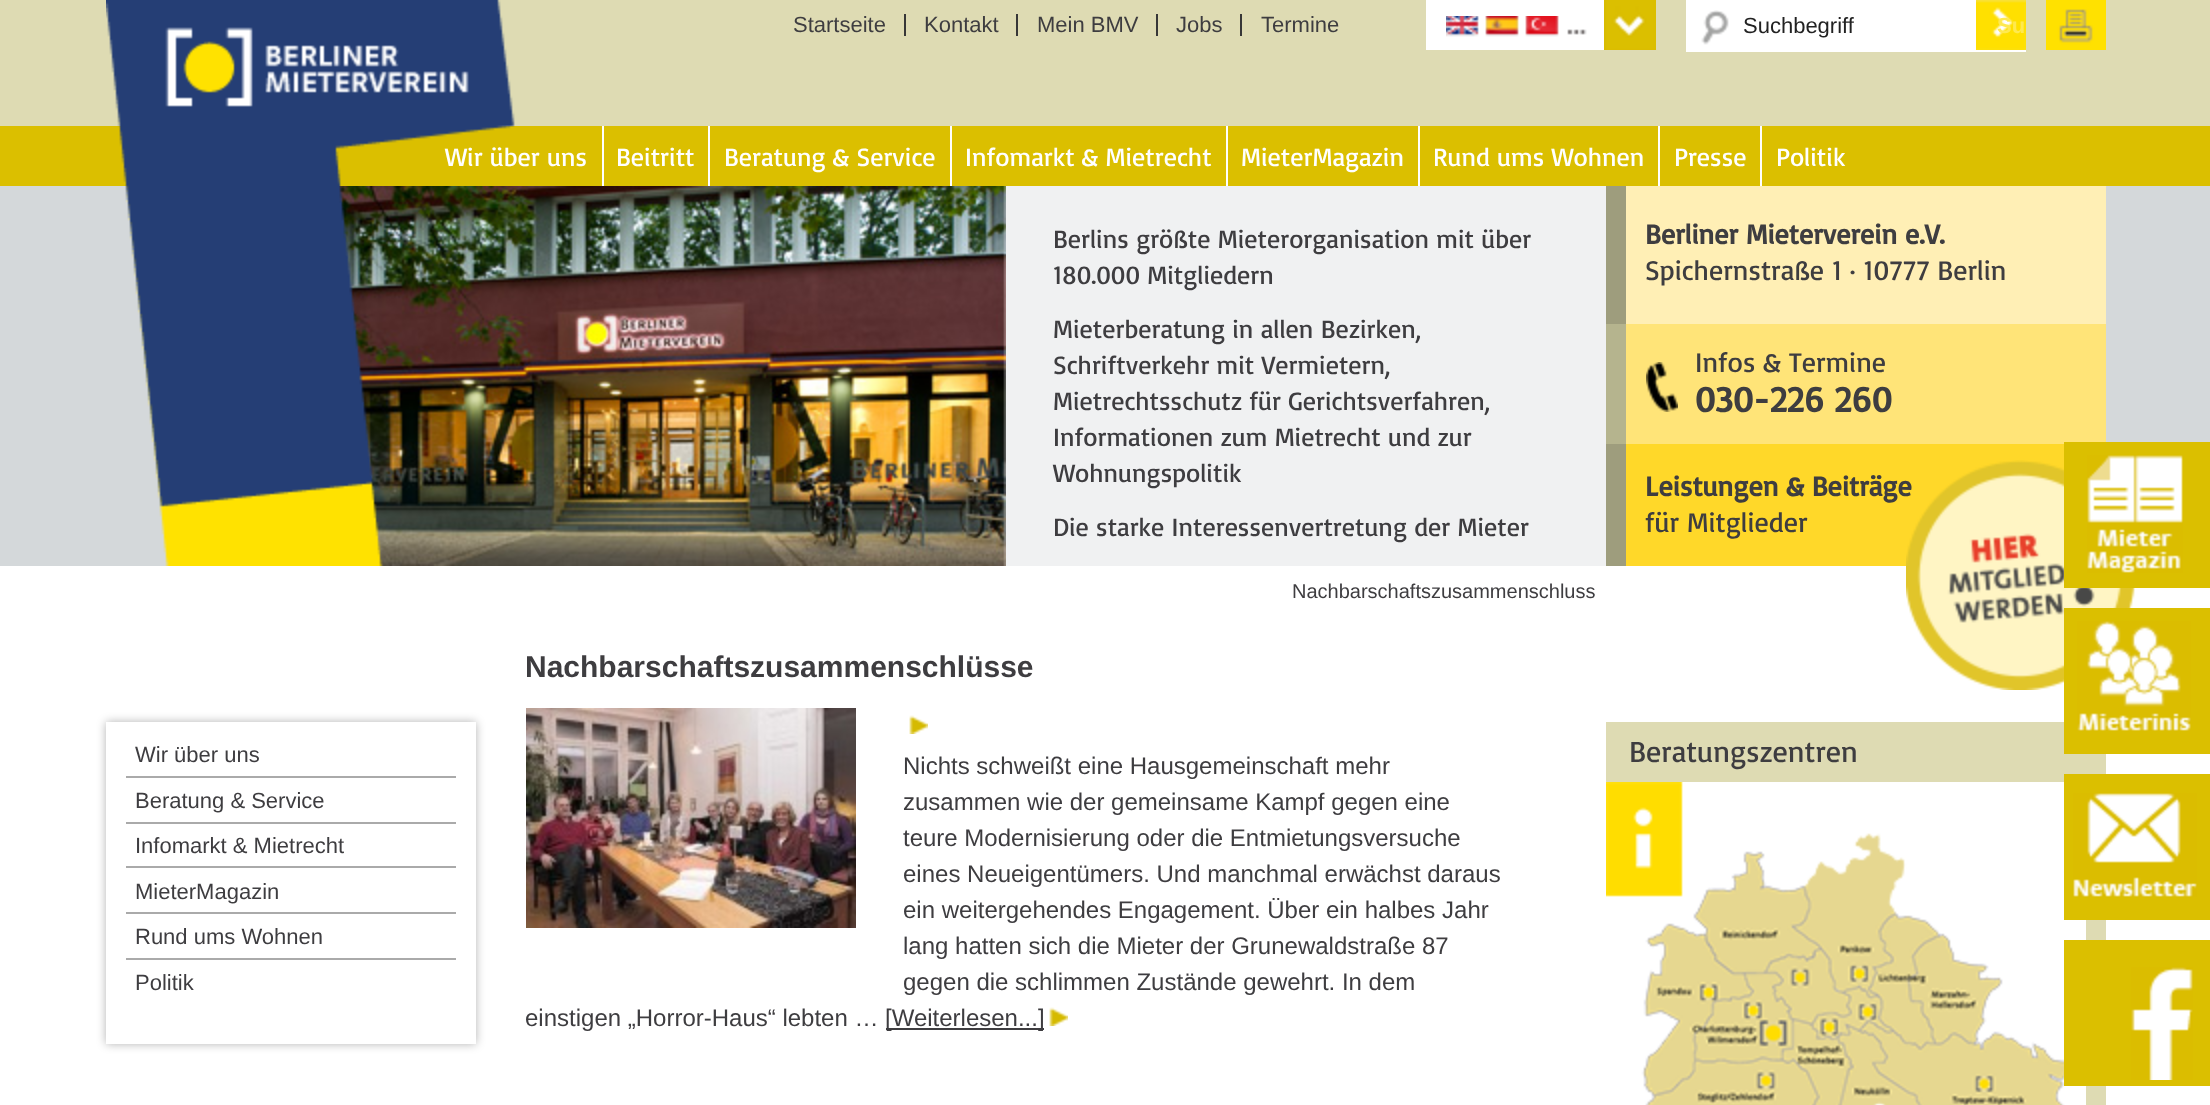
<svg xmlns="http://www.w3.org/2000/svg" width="2210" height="1105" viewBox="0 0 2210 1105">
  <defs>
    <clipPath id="clip1"><path d="M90 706H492V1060H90ZM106 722H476V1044H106Z" clip-rule="evenodd"/></clipPath>
  </defs>
  <rect width="100%" height="100%" fill="rgb(255,255,255)"/>
  <rect x="0" y="0" width="2210" height="126" fill="rgb(222,219,179)"/>
  <rect x="904" y="14" width="2" height="22" fill="rgb(55,55,55)"/>
  <text x="793" y="32" font-family="Liberation Sans" font-size="22" fill="rgb(62,61,64)">Startseite</text>
  <rect x="1016" y="14" width="2" height="22" fill="rgb(55,55,55)"/>
  <text x="924" y="32" font-family="Liberation Sans" font-size="22" fill="rgb(62,61,64)">Kontakt</text>
  <rect x="1156" y="14" width="2" height="22" fill="rgb(55,55,55)"/>
  <text x="1037" y="32" font-family="Liberation Sans" font-size="22" fill="rgb(62,61,64)">Mein BMV</text>
  <rect x="1240" y="14" width="2" height="22" fill="rgb(55,55,55)"/>
  <g font-family="Liberation Sans" font-size="22" fill="rgb(62,61,64)">
    <text x="1176" y="32">Jobs</text>
    <text x="1261" y="32">Termine</text>
  </g>
  <rect x="1426" y="0" width="178" height="50" fill="rgb(255,255,255)"/>
  <image x="1604" y="0" width="52" height="50" href="pic1.png"/>
  <image x="1446" y="16" width="141" height="21" href="pic2.png"/>
  <rect x="1686" y="0" width="340" height="52" fill="rgb(255,255,255)"/>
  <image x="1701" y="10" width="28" height="35" href="pic3.png"/>
  <text x="1743" y="33" font-family="Liberation Sans" font-size="22" fill="rgb(34,34,34)">Suchbegriff</text>
  <image x="1976" y="0" width="50" height="50" href="pic4.png"/>
  <text x="1997" y="33" font-family="Liberation Sans" font-size="22" font-weight="bold" fill="rgb(255,233,79)">Su</text>
  <image x="2046" y="0" width="60" height="50" href="pic5.png"/>
  <rect x="0" y="126" width="2210" height="60" fill="rgb(219,191,0)"/>
  <rect x="602" y="126" width="2" height="60" fill="rgb(255,255,255)"/>
  <text x="445" y="166" font-family="Basic" font-size="26" fill="rgb(255,255,255)">Wir über uns</text>
  <rect x="708" y="126" width="2" height="60" fill="rgb(255,255,255)"/>
  <text x="616" y="166" font-family="Basic" font-size="26" fill="rgb(255,255,255)">Beitritt</text>
  <rect x="950" y="126" width="2" height="60" fill="rgb(255,255,255)"/>
  <text x="724" y="166" font-family="Basic" font-size="26" fill="rgb(255,255,255)">Beratung &amp; Service</text>
  <rect x="1226" y="126" width="2" height="60" fill="rgb(255,255,255)"/>
  <text x="965" y="166" font-family="Basic" font-size="26" fill="rgb(255,255,255)">Infomarkt &amp; Mietrecht</text>
  <rect x="1418" y="126" width="2" height="60" fill="rgb(255,255,255)"/>
  <text x="1241" y="166" font-family="Basic" font-size="26" fill="rgb(255,255,255)">MieterMagazin</text>
  <rect x="1658" y="126" width="2" height="60" fill="rgb(255,255,255)"/>
  <text x="1433" y="166" font-family="Basic" font-size="26" fill="rgb(255,255,255)">Rund ums Wohnen</text>
  <rect x="1760" y="126" width="2" height="60" fill="rgb(255,255,255)"/>
  <g font-family="Basic" font-size="26" fill="rgb(255,255,255)">
    <text x="1674" y="166">Presse</text>
    <text x="1776" y="166">Politik</text>
  </g>
  <rect x="0" y="186" width="2210" height="380" fill="rgb(212,216,218)"/>
  <image x="339" y="186" width="667" height="380" href="pic7.png"/>
  <image x="106" y="0" width="409" height="566" href="pic6.png"/>
  <rect x="1006" y="186" width="600" height="380" fill="rgb(240,241,242)"/>
  <g font-family="Basic" font-size="26" fill="rgb(62,61,64)">
    <text>
      <tspan x="1053" y="248">Berlins größte Mieterorganisation mit über</tspan>
      <tspan x="1053" y="284">180.000 Mitgliedern</tspan>
    </text>
    <text>
      <tspan x="1053" y="338">Mieterberatung in allen Bezirken,</tspan>
      <tspan x="1053" y="374">Schriftverkehr mit Vermietern,</tspan>
      <tspan x="1053" y="410">Mietrechtsschutz für Gerichtsverfahren,</tspan>
      <tspan x="1053" y="446">Informationen zum Mietrecht und zur</tspan>
      <tspan x="1053" y="482">Wohnungspolitik</tspan>
    </text>
    <text x="1053" y="536">Die starke Interessenvertretung der Mieter</text>
  </g>
  <rect x="1626" y="186" width="480" height="138" fill="rgb(255,239,181)"/>
  <rect x="1606" y="186" width="20" height="138" fill="rgb(158,157,125)"/>
  <text x="1645" y="244" font-family="Basic" font-size="28" font-weight="bold" fill="rgb(62,61,64)">Berliner Mieterverein e.V.</text>
  <text x="1645" y="280" font-family="Basic" font-size="28" fill="rgb(62,61,64)">Spichernstraße 1 · 10777 Berlin</text>
  <rect x="1626" y="324" width="480" height="120" fill="rgb(255,228,120)"/>
  <image x="1646" y="362" width="32" height="50" href="pic8.png"/>
  <rect x="1606" y="324" width="20" height="120" fill="rgb(181,180,142)"/>
  <text x="1695" y="372" font-family="Basic" font-size="28" fill="rgb(62,61,64)">Infos &amp; Termine</text>
  <text x="1695" y="412" font-family="Basic" font-size="36" font-weight="bold" fill="rgb(62,61,64)">030-226 260</text>
  <rect x="1626" y="444" width="438" height="122" fill="rgb(255,216,41)"/>
  <rect x="1606" y="444" width="20" height="122" fill="rgb(158,157,125)"/>
  <text x="1645" y="496" font-family="Basic" font-size="28" font-weight="bold" fill="rgb(62,61,64)">Leistungen &amp; Beiträge</text>
  <text x="1645" y="532" font-family="Basic" font-size="28" fill="rgb(62,61,64)">für Mitglieder</text>
  <image x="1906" y="460" width="229" height="230" href="pic9.png"/>
  <g clip-path="url(#clip1)">
    <rect x="106" y="722" width="370" height="322" fill="rgba(0,0,0,0.3)" filter="blur(5px)"/>
  </g>
  <rect x="126" y="776" width="330" height="2" fill="rgb(170,170,170)"/>
  <text x="135" y="762" font-family="Liberation Sans" font-size="22" fill="rgb(62,61,64)">Wir über uns</text>
  <rect x="126" y="822" width="330" height="2" fill="rgb(170,170,170)"/>
  <text x="135" y="808" font-family="Liberation Sans" font-size="22" fill="rgb(62,61,64)">Beratung &amp; Service</text>
  <rect x="126" y="866" width="330" height="2" fill="rgb(170,170,170)"/>
  <text x="135" y="853" font-family="Liberation Sans" font-size="22" fill="rgb(62,61,64)">Infomarkt &amp; Mietrecht</text>
  <rect x="126" y="912" width="330" height="2" fill="rgb(170,170,170)"/>
  <text x="135" y="899" font-family="Liberation Sans" font-size="22" fill="rgb(62,61,64)">MieterMagazin</text>
  <rect x="126" y="958" width="330" height="2" fill="rgb(170,170,170)"/>
  <g font-family="Liberation Sans" font-size="22" fill="rgb(62,61,64)">
    <text x="135" y="944">Rund ums Wohnen</text>
    <text x="135" y="990">Politik</text>
  </g>
  <text x="1292" y="598" font-family="Liberation Sans" font-size="20" fill="rgb(62,61,64)">Nachbarschaftszusammenschluss</text>
  <text x="525" y="677" font-family="Liberation Sans" font-size="30" font-weight="bold" fill="rgb(62,61,64)">Nachbarschaftszusammenschlüsse</text>
  <image x="526" y="708" width="330" height="220" href="pic10.png"/>
  <image x="909" y="715" width="19" height="19" href="pic11.png"/>
  <g font-family="Liberation Sans" font-size="24" fill="rgb(62,61,64)">
    <text>
      <tspan x="903" y="774">Nichts schweißt eine Hausgemeinschaft mehr</tspan>
      <tspan x="903" y="810">zusammen wie der gemeinsame Kampf gegen eine</tspan>
      <tspan x="903" y="846">teure Modernisierung oder die Entmietungsversuche</tspan>
      <tspan x="903" y="882">eines Neueigentümers. Und manchmal erwächst daraus</tspan>
      <tspan x="903" y="918">ein weitergehendes Engagement. Über ein halbes Jahr</tspan>
      <tspan x="903" y="954">lang hatten sich die Mieter der Grunewaldstraße 87</tspan>
      <tspan x="903" y="990">gegen die schlimmen Zustände gewehrt. In dem</tspan>
    </text>
    <text x="525" y="1026">einstigen „Horror-Haus“ lebten …</text>
  </g>
  <rect x="886" y="1028" width="158" height="2" fill="rgb(62,61,64)"/>
  <text x="885" y="1026" font-family="Liberation Sans" font-size="24" fill="rgb(62,61,64)">[Weiterlesen...]</text>
  <image x="1049" y="1007" width="19" height="19" href="pic11.png"/>
  <rect x="1606" y="722" width="500" height="60" fill="rgb(222,219,179)"/>
  <text x="1629" y="762" font-family="Basic" font-size="30" fill="rgb(62,61,64)">Beratungszentren</text>
  <rect x="2086" y="920" width="20" height="185" fill="rgb(222,219,179)"/>
  <image x="1606" y="782" width="461" height="323" href="pic12.png"/>
  <rect x="2064" y="442" width="146" height="146" fill="rgb(219,191,0)"/>
  <image x="2087" y="455" width="96" height="118" href="pic13.png"/>
  <rect x="2064" y="608" width="146" height="146" fill="rgb(219,191,0)"/>
  <image x="2077" y="621" width="114" height="110" href="pic14.png"/>
  <rect x="2064" y="774" width="146" height="146" fill="rgb(219,191,0)"/>
  <image x="2073" y="793" width="124" height="104" href="pic15.png"/>
  <rect x="2064" y="940" width="146" height="146" fill="rgb(219,191,0)"/>
  <image x="2131" y="967" width="62" height="113" href="pic16.png"/>
</svg>
